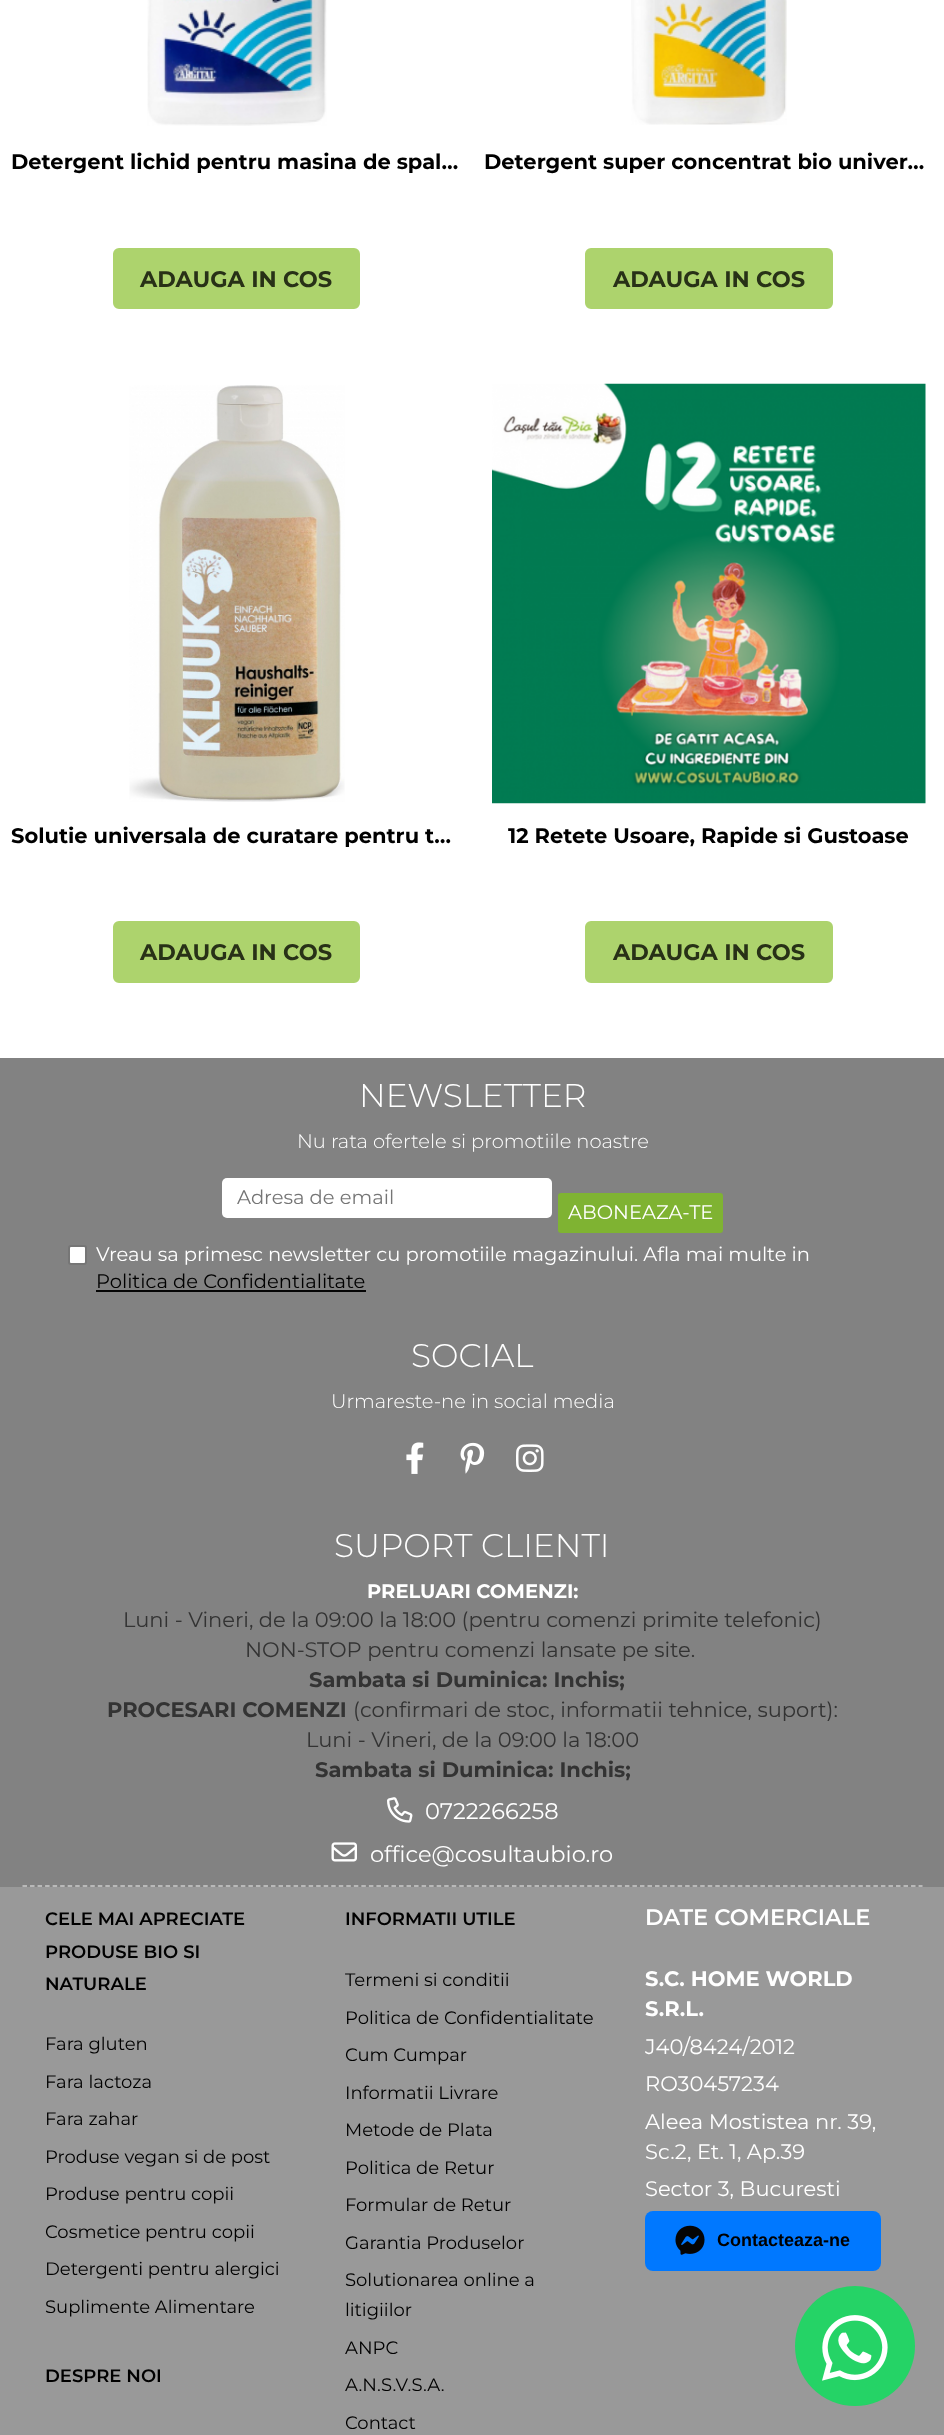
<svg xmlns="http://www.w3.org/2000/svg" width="944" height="2435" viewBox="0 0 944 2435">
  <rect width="100%" height="100%" fill="rgb(255,255,255)"/>
  <image x="147" y="0" width="180" height="126" href="pic1.png"/>
  <text x="11" y="169" font-family="Montserrat" font-size="21" font-weight="bold" fill="rgb(0,0,0)">Detergent lichid pentru masina de spal…</text>
  <rect x="114" y="249" width="245" height="59" rx="5" fill="rgb(173,211,109)" stroke="rgb(173,211,109)" stroke-width="2"/>
  <text x="140" y="287" font-family="Montserrat" font-size="22.5" font-weight="bold" fill="rgb(40,49,23)">ADAUGA IN COS</text>
  <image x="631" y="0" width="156" height="125" href="pic2.png"/>
  <text x="484" y="169" font-family="Montserrat" font-size="21" font-weight="bold" fill="rgb(0,0,0)">Detergent super concentrat bio univer…</text>
  <rect x="586" y="249" width="246" height="59" rx="5" fill="rgb(173,211,109)" stroke="rgb(173,211,109)" stroke-width="2"/>
  <text x="613" y="287" font-family="Montserrat" font-size="22.5" font-weight="bold" fill="rgb(40,49,23)">ADAUGA IN COS</text>
  <image x="129" y="385" width="216" height="417" href="pic3.png"/>
  <text x="11" y="843" font-family="Montserrat" font-size="21" font-weight="bold" fill="rgb(0,0,0)">Solutie universala de curatare pentru t…</text>
  <rect x="114" y="922" width="245" height="60" rx="5" fill="rgb(173,211,109)" stroke="rgb(173,211,109)" stroke-width="2"/>
  <text x="140" y="960" font-family="Montserrat" font-size="22.5" font-weight="bold" fill="rgb(40,49,23)">ADAUGA IN COS</text>
  <image x="492" y="383" width="434" height="421" href="pic4.png"/>
  <text x="508" y="843" font-family="Montserrat" font-size="21" font-weight="bold" fill="rgb(0,0,0)">12 Retete Usoare, Rapide si Gustoase</text>
  <rect x="586" y="922" width="246" height="60" rx="5" fill="rgb(173,211,109)" stroke="rgb(173,211,109)" stroke-width="2"/>
  <text x="613" y="960" font-family="Montserrat" font-size="22.5" font-weight="bold" fill="rgb(40,49,23)">ADAUGA IN COS</text>
  <rect x="0" y="1058" width="944" height="829" fill="rgb(130,130,130)"/>
  <path d="M22.5 1886H922.5" fill="none" stroke="rgb(204,204,204)" stroke-width="1.5" stroke-dasharray="4.5 3.03"/>
  <text x="359" y="1107" font-family="Montserrat" font-size="32.75" font-weight="300" fill="rgb(255,255,255)">NEWSLETTER</text>
  <text x="297" y="1148" font-family="Montserrat" font-size="19.5" font-weight="300" fill="rgb(255,255,255)">Nu rata ofertele si promotiile noastre</text>
  <rect x="222" y="1178" width="330" height="40" rx="5" fill="rgb(255,255,255)"/>
  <text x="237" y="1204" font-family="Montserrat" font-size="19.5" fill="rgb(117,117,117)">Adresa de email</text>
  <rect x="558" y="1193" width="165" height="40" rx="3" fill="rgb(127,179,50)"/>
  <text x="568" y="1219" font-family="Montserrat" font-size="19.5" fill="rgb(255,255,255)">ABONEAZA-TE</text>
  <rect x="69" y="1246" width="17" height="18" rx="2" fill="rgb(255,255,255)" stroke="rgb(118,118,118)" stroke-width="2"/>
  <text x="96" y="1261" font-family="Montserrat" font-size="19.5" fill="rgb(255,255,255)">Vreau sa primesc newsletter cu promotiile magazinului. Afla mai multe in</text>
  <text x="96" y="1288" font-family="Montserrat" font-size="19.5" fill="rgb(0,0,0)">Politica de Confidentialitate</text>
  <rect x="96" y="1290" width="270" height="2" fill="rgb(5,5,5)"/>
  <text x="411" y="1367" font-family="Montserrat" font-size="32.75" font-weight="300" fill="rgb(255,255,255)">SOCIAL</text>
  <text x="331" y="1408" font-family="Montserrat" font-size="19.5" font-weight="300" fill="rgb(255,255,255)">Urmareste-ne in social media</text>
  <image x="406" y="1442" width="18" height="32" href="pic5.png"/>
  <image x="460" y="1442" width="25" height="32" href="pic6.png"/>
  <image x="516" y="1444" width="28" height="28" href="pic7.png"/>
  <text x="334" y="1557" font-family="Montserrat" font-size="32.75" font-weight="300" fill="rgb(255,255,255)">SUPORT CLIENTI</text>
  <text x="367" y="1598" font-family="Montserrat" font-size="19.5" font-weight="bold" fill="rgb(255,255,255)">PRELUARI COMENZI:</text>
  <g font-family="Montserrat" font-size="21" fill="rgb(51,51,51)">
    <text x="123" y="1627">Luni - Vineri, de la 09:00 la 18:00 (pentru comenzi primite telefonic)</text>
    <text x="245" y="1657">NON-STOP pentru comenzi lansate pe site.</text>
  </g>
  <g font-family="Montserrat" font-size="21" font-weight="bold" fill="rgb(51,51,51)">
    <text x="309" y="1687">Sambata si Duminica: Inchis;</text>
    <text x="107" y="1717">PROCESARI COMENZI</text>
  </g>
  <g font-family="Montserrat" font-size="21" fill="rgb(51,51,51)">
    <text x="353" y="1717">(confirmari de stoc, informatii tehnice, suport):</text>
    <text x="306" y="1747">Luni - Vineri, de la 09:00 la 18:00</text>
  </g>
  <text x="315" y="1777" font-family="Montserrat" font-size="21" font-weight="bold" fill="rgb(51,51,51)">Sambata si Duminica: Inchis;</text>
  <image x="387" y="1797" width="26" height="26" href="pic8.png"/>
  <text x="425" y="1819" font-family="Montserrat" font-size="22.5" fill="rgb(255,255,255)">0722266258</text>
  <image x="331" y="1842" width="26" height="20" href="pic9.png"/>
  <text x="370" y="1862" font-family="Montserrat" font-size="22.5" fill="rgb(255,255,255)">office@cosultaubio.ro</text>
  <rect x="0" y="1887" width="944" height="548" fill="rgb(153,153,153)"/>
  <g font-family="Montserrat" font-size="18" font-weight="600" fill="rgb(0,0,0)">
    <text>
      <tspan x="45" y="1925">CELE MAI APRECIATE</tspan>
      <tspan x="45" y="1958">PRODUSE BIO SI</tspan>
      <tspan x="45" y="1990">NATURALE</tspan>
    </text>
  </g>
  <g font-family="Montserrat" font-size="18" fill="rgb(0,0,0)">
    <text x="45" y="2050">Fara gluten</text>
    <text x="45" y="2088">Fara lactoza</text>
    <text x="45" y="2125">Fara zahar</text>
    <text x="45" y="2163">Produse vegan si de post</text>
    <text x="45" y="2200">Produse pentru copii</text>
    <text x="45" y="2238">Cosmetice pentru copii</text>
    <text x="45" y="2275">Detergenti pentru alergici</text>
    <text x="45" y="2313">Suplimente Alimentare</text>
  </g>
  <g font-family="Montserrat" font-size="18" font-weight="600" fill="rgb(0,0,0)">
    <text x="45" y="2382">DESPRE NOI</text>
    <text x="345" y="1925">INFORMATII UTILE</text>
  </g>
  <g font-family="Montserrat" font-size="18" fill="rgb(0,0,0)">
    <text x="345" y="1986">Termeni si conditii</text>
    <text x="345" y="2024">Politica de Confidentialitate</text>
    <text x="345" y="2061">Cum Cumpar</text>
    <text x="345" y="2099">Informatii Livrare</text>
    <text x="345" y="2136">Metode de Plata</text>
    <text x="345" y="2174">Politica de Retur</text>
    <text x="345" y="2211">Formular de Retur</text>
    <text x="345" y="2249">Garantia Produselor</text>
    <text>
      <tspan x="345" y="2286">Solutionarea online a</tspan>
      <tspan x="345" y="2316">litigiilor</tspan>
    </text>
    <text x="345" y="2354">ANPC</text>
    <text x="345" y="2391">A.N.S.V.S.A.</text>
    <text x="345" y="2429">Contact</text>
  </g>
  <text x="645" y="1925" font-family="Montserrat" font-size="22.5" font-weight="600" fill="rgb(255,255,255)">DATE COMERCIALE</text>
  <g font-family="Montserrat" font-size="21" font-weight="bold" fill="rgb(255,255,255)">
    <text>
      <tspan x="645" y="1986">S.C. HOME WORLD</tspan>
      <tspan x="645" y="2016">S.R.L.</tspan>
    </text>
  </g>
  <g font-family="Montserrat" font-size="21" fill="rgb(255,255,255)">
    <text>
      <tspan x="645" y="2054">J40/8424/2012</tspan>
      <tspan x="645" y="2091">RO30457234</tspan>
      <tspan x="645" y="2129">Aleea Mostistea nr. 39,</tspan>
      <tspan x="645" y="2159">Sc.2, Et. 1, Ap.39</tspan>
      <tspan x="645" y="2196">Sector 3, Bucuresti</tspan>
    </text>
  </g>
  <rect x="645" y="2211" width="236" height="60" rx="8" fill="rgb(0,120,255)"/>
  <image x="675" y="2225" width="30" height="30" href="pic10.png"/>
  <text x="717" y="2246" font-family="Liberation Sans" font-size="18" font-weight="bold" fill="rgb(0,0,0)">Contacteaza-ne</text>
  <circle cx="855" cy="2346" r="60" fill="rgb(37,211,102)"/>
  <image x="822" y="2315" width="66" height="66" href="pic11.png"/>
</svg>
